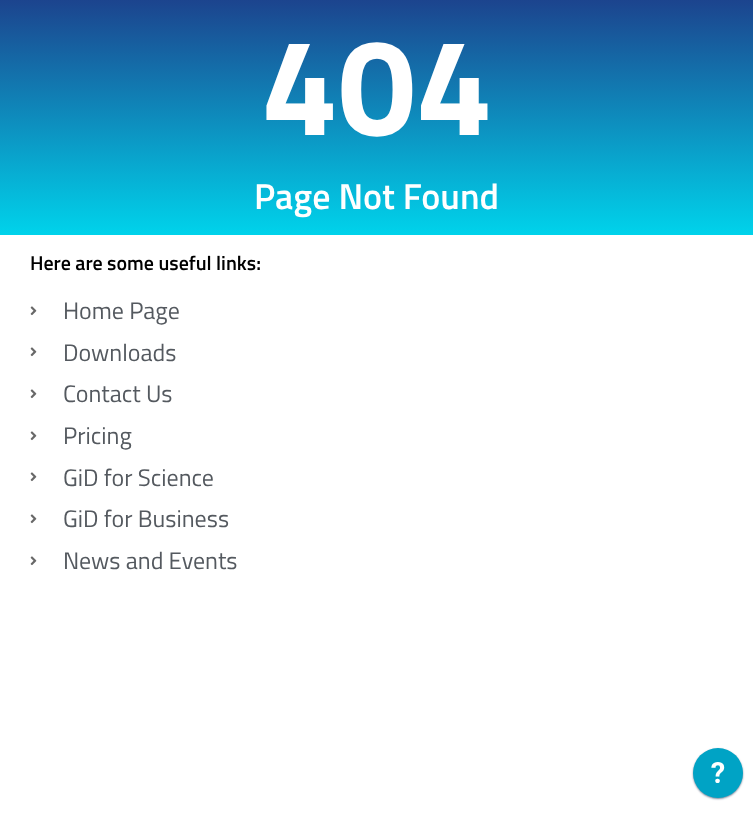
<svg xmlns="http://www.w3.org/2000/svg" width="753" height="818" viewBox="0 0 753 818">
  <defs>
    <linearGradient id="g1" gradientUnits="userSpaceOnUse" x1="377" y1="0" x2="377" y2="235"><stop offset="0" stop-color="rgb(28,68,142)"/><stop offset="1" stop-color="rgb(0,211,235)"/></linearGradient>
  </defs>
  <rect width="100%" height="100%" fill="rgb(255,255,255)"/>
  <rect x="0" y="0" width="753" height="235" fill="url(#g1)"/>
  <text x="261" y="135" font-family="Titillium Web" font-size="138" font-weight="bold" fill="rgb(255,255,255)">404</text>
  <text x="254" y="209" font-family="Titillium Web" font-size="36" font-weight="600" fill="rgb(255,255,255)">Page Not Found</text>
  <text x="30" y="270" font-family="Titillium Web" font-size="20" font-weight="600" fill="rgb(0,0,0)">Here are some useful links:</text>
  <image x="30" y="306" width="7" height="10" href="pic1.png"/>
  <text x="63" y="319" font-family="Titillium Web" font-size="24" fill="rgb(84,89,95)">Home Page</text>
  <image x="30" y="347" width="7" height="10" href="pic1.png"/>
  <text x="63" y="361" font-family="Titillium Web" font-size="24" fill="rgb(84,89,95)">Downloads</text>
  <image x="30" y="389" width="7" height="10" href="pic1.png"/>
  <text x="63" y="402" font-family="Titillium Web" font-size="24" fill="rgb(84,89,95)">Contact Us</text>
  <image x="30" y="431" width="7" height="10" href="pic1.png"/>
  <text x="63" y="444" font-family="Titillium Web" font-size="24" fill="rgb(84,89,95)">Pricing</text>
  <image x="30" y="472" width="7" height="10" href="pic1.png"/>
  <text x="63" y="486" font-family="Titillium Web" font-size="24" fill="rgb(84,89,95)">GiD for Science</text>
  <image x="30" y="514" width="7" height="10" href="pic1.png"/>
  <text x="63" y="527" font-family="Titillium Web" font-size="24" fill="rgb(84,89,95)">GiD for Business</text>
  <image x="30" y="556" width="7" height="10" href="pic1.png"/>
  <text x="63" y="569" font-family="Titillium Web" font-size="24" fill="rgb(84,89,95)">News and Events</text>
  <image x="691" y="747" width="54" height="54" href="pic2.png"/>
</svg>
